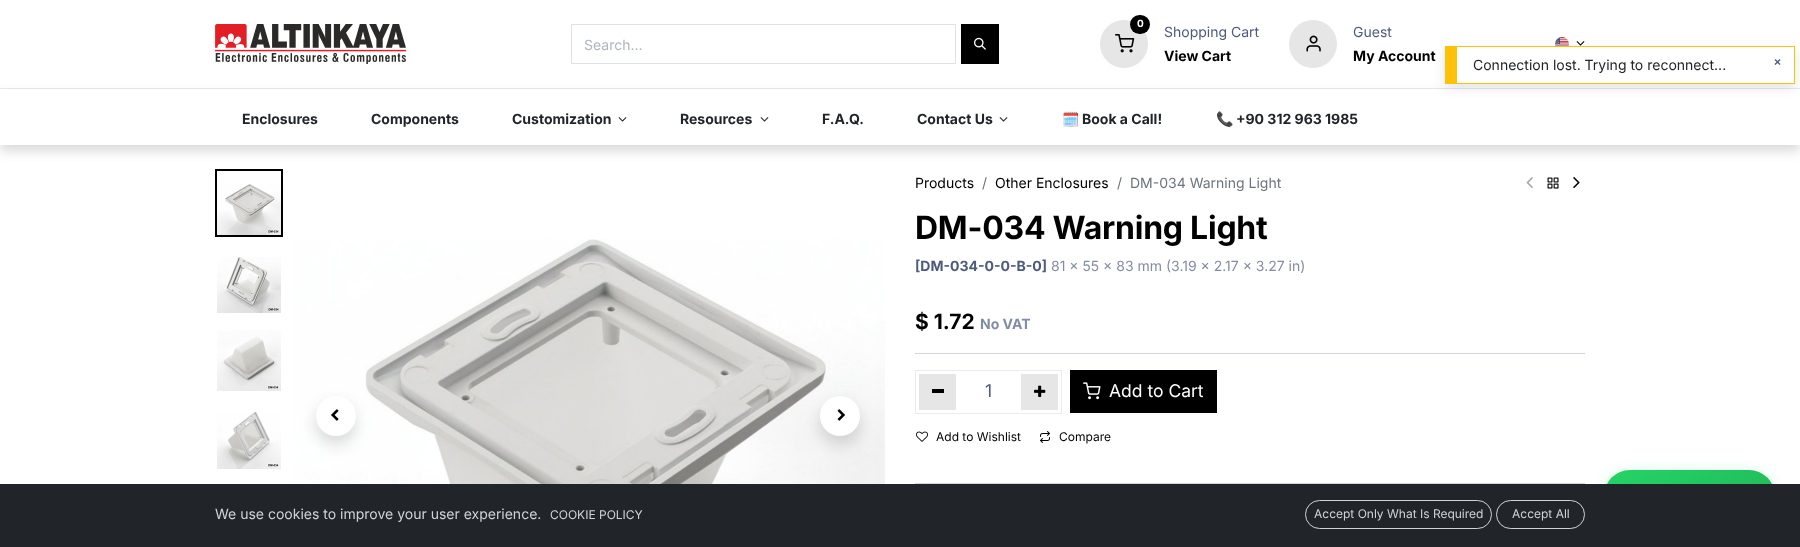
<svg xmlns="http://www.w3.org/2000/svg" width="1800" height="547" viewBox="0 0 1800 547">
  <defs>
    <clipPath id="clip1"><path d="M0 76H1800V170H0ZM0 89H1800V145H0Z" clip-rule="evenodd"/></clipPath>
    <linearGradient id="g1" gradientUnits="userSpaceOnUse" x1="1634" y1="440" x2="1745" y2="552"><stop offset="0" stop-color="rgb(37,211,102)"/><stop offset="1" stop-color="rgb(32,186,90)"/></linearGradient>
  </defs>
  <rect width="100%" height="100%" fill="rgb(255,255,255)"/>
  <rect x="0" y="88" width="1800" height="1" fill="rgb(234,235,239)"/>
  <image x="215" y="24" width="191" height="40" href="pic1.png"/>
  <rect x="571.5" y="24.5" width="384" height="39" fill="none" stroke="rgb(222,226,230)"/>
  <text x="584" y="50" font-family="Inter" font-size="14" fill="rgb(173,181,189)">Search...</text>
  <rect x="961" y="24" width="38" height="40" fill="rgb(0,0,0)"/>
  <image x="974" y="37" width="12" height="13" href="pic2.png"/>
  <circle cx="1124" cy="44" r="24" fill="rgb(230,230,230)"/>
  <rect x="1130" y="15" width="20" height="19" rx="9.5" fill="rgb(0,0,0)"/>
  <text x="1137" y="27" font-family="Inter" font-size="10" font-weight="bold" fill="rgb(255,255,255)">0</text>
  <image x="1115" y="34" width="20" height="19" href="pic3.png"/>
  <text x="1164" y="37" font-family="Inter" font-size="14" fill="rgb(77,91,124)">Shopping Cart</text>
  <text x="1164" y="61" font-family="Inter" font-size="14" font-weight="bold" fill="rgb(0,0,0)">View Cart</text>
  <circle cx="1313" cy="44" r="24" fill="rgb(230,230,230)"/>
  <image x="1306" y="35" width="15" height="17" href="pic4.png"/>
  <text x="1353" y="37" font-family="Inter" font-size="14" fill="rgb(77,91,124)">Guest</text>
  <text x="1353" y="61" font-family="Inter" font-size="14" font-weight="bold" fill="rgb(0,0,0)">My Account</text>
  <image x="1555" y="37" width="14" height="9" href="pic5.png"/>
  <image x="1576" y="41" width="9" height="5" href="pic6.png"/>
  <rect x="216" y="170" width="66" height="66" fill="none" stroke="rgb(0,0,0)" stroke-width="2"/>
  <g clip-path="url(#clip1)">
    <rect x="0" y="95" width="1800" height="56" fill="rgba(0,0,0,0.15)" filter="blur(6px)"/>
  </g>
  <g font-family="Inter" font-size="14" font-weight="bold" fill="rgb(33,37,41)">
    <text x="242" y="124">Enclosures</text>
    <text x="371" y="124">Components</text>
    <text x="512" y="124">Customization</text>
  </g>
  <image x="618" y="117" width="9" height="5" href="pic7.png"/>
  <text x="680" y="124" font-family="Inter" font-size="14" font-weight="bold" fill="rgb(33,37,41)">Resources</text>
  <image x="760" y="117" width="9" height="5" href="pic7.png"/>
  <g font-family="Inter" font-size="14" font-weight="bold" fill="rgb(33,37,41)">
    <text x="822" y="124">F.A.Q.</text>
    <text x="917" y="124">Contact Us</text>
  </g>
  <image x="999" y="117" width="9" height="5" href="pic7.png"/>
  <text x="1062" y="124" font-family="Noto Color Emoji" font-size="14" font-weight="bold" fill="rgb(33,37,41)">🗓️</text>
  <text x="1082" y="124" font-family="Inter" font-size="14" font-weight="bold" fill="rgb(33,37,41)">Book a Call!</text>
  <text x="1216" y="124" font-family="Noto Color Emoji" font-size="14" font-weight="bold" fill="rgb(33,37,41)">📞</text>
  <text x="1236" y="124" font-family="Inter" font-size="14" font-weight="bold" fill="rgb(33,37,41)">+90 312 963 1985</text>
  <image x="217" y="184" width="64" height="51" href="pic8.png"/>
  <image x="217" y="257" width="64" height="56" href="pic9.png"/>
  <image x="217" y="330" width="64" height="61" href="pic10.png"/>
  <image x="217" y="411" width="64" height="58" href="pic11.png"/>
  <image x="291" y="239" width="594" height="245" href="pic12.png"/>
  <rect x="316" y="404" width="40" height="40" rx="20" fill="rgba(0,0,0,0.15)" filter="blur(8px)"/>
  <circle cx="336" cy="416" r="20" fill="rgb(255,255,255)"/>
  <image x="331" y="409" width="8" height="12" href="pic13.png"/>
  <rect x="820" y="404" width="40" height="40" rx="20" fill="rgba(0,0,0,0.15)" filter="blur(8px)"/>
  <circle cx="840" cy="416" r="20" fill="rgb(255,255,255)"/>
  <image x="837" y="409" width="8" height="12" href="pic14.png"/>
  <text x="915" y="188" font-family="Inter" font-size="14" fill="rgb(0,0,0)">Products</text>
  <text x="982" y="188" font-family="Inter" font-size="14" fill="rgb(108,117,125)">/</text>
  <text x="995" y="188" font-family="Inter" font-size="14" fill="rgb(0,0,0)">Other Enclosures</text>
  <g font-family="Inter" font-size="14" fill="rgb(108,117,125)">
    <text x="1117" y="188">/</text>
    <text x="1130" y="188">DM-034 Warning Light</text>
  </g>
  <image x="1526" y="177" width="7" height="11" href="pic15.png"/>
  <image x="1547" y="177" width="12" height="12" href="pic16.png"/>
  <image x="1573" y="177" width="7" height="12" href="pic17.png"/>
  <text x="915" y="239" font-family="Inter" font-size="32" font-weight="bold" letter-spacing="-0.25" fill="rgb(0,0,0)">DM-034 Warning Light</text>
  <text x="915" y="271" font-family="Inter" font-size="14" font-weight="bold" fill="rgb(77,91,124)">[DM-034-0-0-B-0]</text>
  <text x="1051" y="271" font-family="Inter" font-size="14" fill="rgb(130,140,163)">81 x 55 x 83 mm (3.19 x 2.17 x 3.27 in)</text>
  <text x="915" y="329" font-family="Inter" font-size="21" font-weight="bold" fill="rgb(0,0,0)">$ 1.72</text>
  <text x="980" y="329" font-family="Inter" font-size="14" font-weight="bold" fill="rgb(130,140,163)">No VAT</text>
  <rect x="915" y="353" width="670" height="1" fill="rgb(211,214,222)"/>
  <rect x="915.5" y="370.5" width="146" height="43" fill="none" stroke="rgb(233,236,239)"/>
  <rect x="919" y="374" width="37" height="36" fill="rgb(230,230,230)"/>
  <rect x="932" y="389" width="12" height="4" fill="rgb(0,0,0)"/>
  <text x="985" y="397" font-family="Inter" font-size="17.5" fill="rgb(77,91,124)">1</text>
  <rect x="1021" y="374" width="37" height="36" fill="rgb(230,230,230)"/>
  <image x="1034" y="385" width="12" height="12" href="pic18.png"/>
  <rect x="1070" y="370" width="147" height="43" fill="rgb(0,0,0)"/>
  <image x="1083" y="382" width="18" height="18" href="pic19.png"/>
  <text x="1109" y="397" font-family="Inter" font-size="17.5" fill="rgb(255,255,255)">Add to Cart</text>
  <image x="916" y="431" width="12" height="11" href="pic20.png"/>
  <text x="936" y="441" font-family="Inter" font-size="12" fill="rgb(0,0,0)">Add to Wishlist</text>
  <image x="1040" y="431" width="10" height="12" href="pic21.png"/>
  <text x="1059" y="441" font-family="Inter" font-size="12" fill="rgb(0,0,0)">Compare</text>
  <rect x="915" y="483" width="670" height="1" fill="rgb(211,214,222)"/>
  <rect x="1604" y="474" width="171" height="52" rx="26" fill="rgba(37,211,102,0.3)" filter="blur(7.5px)"/>
  <rect x="1604" y="470" width="171" height="52" rx="26" fill="url(#g1)"/>
  <rect x="0" y="484" width="1800" height="63" fill="rgb(33,37,41)"/>
  <text x="215" y="519" font-family="Inter" font-size="14" fill="rgb(206,212,218)">We use cookies to improve your user experience.</text>
  <text x="550" y="519" font-family="Inter" font-size="12" fill="rgb(206,212,218)">COOKIE POLICY</text>
  <rect x="1305.5" y="500.5" width="186" height="28" rx="14" fill="none" stroke="rgb(206,212,218)"/>
  <text x="1314" y="518" font-family="Inter" font-size="12" fill="rgb(206,212,218)">Accept Only What Is Required</text>
  <rect x="1496.5" y="500.5" width="88" height="28" rx="14" fill="none" stroke="rgb(206,212,218)"/>
  <text x="1512" y="518" font-family="Inter" font-size="12" fill="rgb(206,212,218)">Accept All</text>
  <rect x="1445" y="50" width="350" height="38" fill="rgba(0,0,0,0.1)" filter="blur(6px)"/>
  <rect x="1457" y="47" width="337" height="36" fill="rgb(255,255,255)"/>
  <rect x="1457" y="46" width="338" height="1" fill="rgb(255,193,7)"/>
  <rect x="1794" y="46" width="1" height="38" fill="rgb(255,193,7)"/>
  <rect x="1457" y="83" width="338" height="1" fill="rgb(255,193,7)"/>
  <rect x="1445" y="46" width="12" height="38" fill="rgb(255,193,7)"/>
  <text x="1473" y="70" font-family="Inter" font-size="14" fill="rgb(33,37,41)">Connection lost. Trying to reconnect...</text>
  <text x="1774" y="66" font-family="Liberation Sans" font-size="12" font-weight="bold" fill="rgb(77,91,124)">×</text>
</svg>
